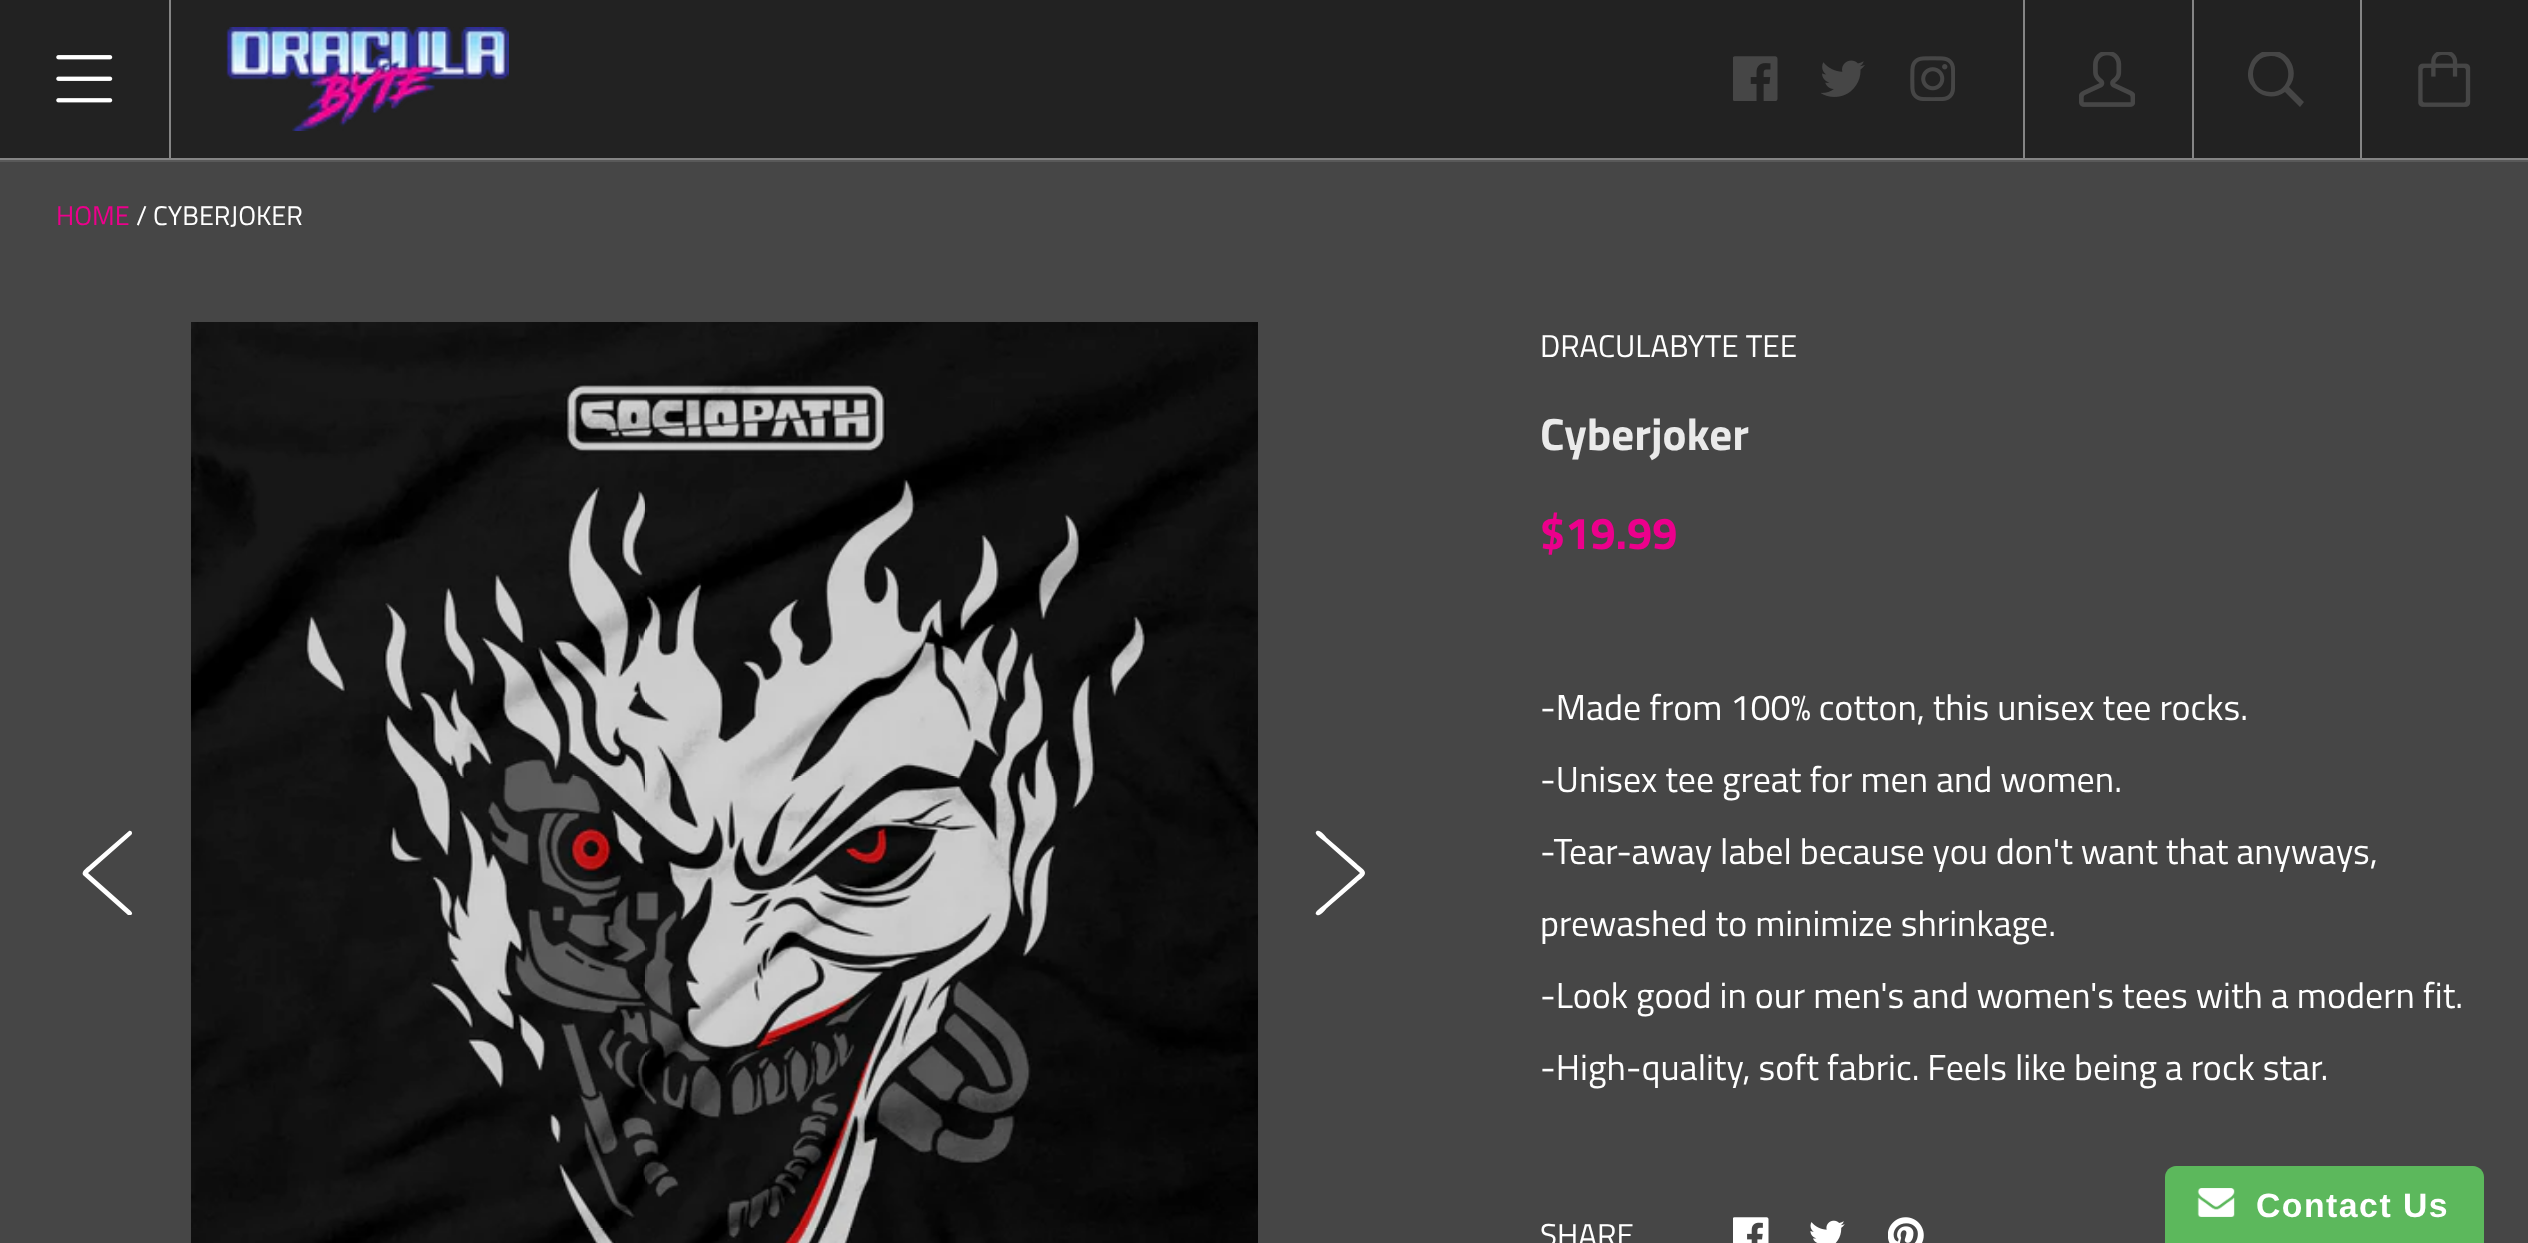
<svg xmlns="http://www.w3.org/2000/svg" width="2528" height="1243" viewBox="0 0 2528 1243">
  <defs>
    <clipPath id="clip1"><rect x="2248" y="52" width="56" height="55"/></clipPath>
  </defs>
  <rect width="100%" height="100%" fill="rgb(70,70,70)"/>
  <rect x="0" y="160" width="2528" height="2" fill="rgb(89,89,89)"/>
  <rect x="0" y="0" width="2528" height="158" fill="rgb(34,34,34)"/>
  <rect x="0" y="158" width="2528" height="2" fill="rgb(133,133,133)"/>
  <image x="56" y="55" width="57" height="48" href="pic1.png"/>
  <rect x="169" y="0" width="2" height="158" fill="rgb(133,133,133)"/>
  <image x="226" y="27" width="283" height="104" href="pic2.png"/>
  <image x="1733" y="56" width="45" height="45" href="pic3.png"/>
  <image x="1821" y="60" width="44" height="37" href="pic4.png"/>
  <image x="1910" y="56" width="45" height="45" href="pic5.png"/>
  <rect x="2023" y="0" width="2" height="158" fill="rgb(133,133,133)"/>
  <image x="2079" y="52" width="56" height="55" href="pic6.png"/>
  <rect x="2192" y="0" width="2" height="158" fill="rgb(133,133,133)"/>
  <g clip-path="url(#clip1)">
    <path d="M2304 102L2300 107L2285 92C2274 100 2259 97 2252 86C2247 80 2247 72 2250 65C2252 59 2256 55 2262 52C2284 43 2303 69 2289 87ZM2271 56C2247 56 2247 92 2271 92C2294 92 2294 56 2271 56Z" fill="rgb(70,70,70)"/>
  </g>
  <rect x="2360" y="0" width="2" height="158" fill="rgb(133,133,133)"/>
  <image x="2418" y="52" width="53" height="55" href="pic7.png"/>
  <text x="56" y="225" font-family="Titillium Web" font-size="27" fill="rgb(236,0,140)">HOME</text>
  <text x="136" y="225" font-family="Titillium Web" font-size="27" fill="rgb(255,255,255)">/ CYBERJOKER</text>
  <path d="M131 835L88 873L124 905C128 909 135 913 131 915H128L83 875C81 871 88 867 91 864L129 831C132 830 133 834 131 835Z" fill="rgb(255,255,255)"/>
  <image x="191" y="322" width="1067" height="921" href="pic8.png"/>
  <path d="M1365 873C1365 877 1357 881 1357 882L1327 908C1326 909 1320 917 1317 915C1313 913 1319 909 1324 905L1360 873L1324 841C1319 837 1313 833 1317 831C1320 829 1326 837 1327 838L1357 864C1357 865 1365 869 1365 873Z" fill="rgb(255,255,255)"/>
  <text x="1540" y="357" font-family="Titillium Web" font-size="31.5" fill="rgb(255,255,255)">DRACULABYTE TEE</text>
  <text x="1540" y="450" font-family="Titillium Web" font-size="45" font-weight="bold" fill="rgb(234,234,234)">Cyberjoker</text>
  <text x="1540" y="549" font-family="Titillium Web" font-size="45" font-weight="bold" fill="rgb(236,0,140)">$19.99</text>
  <g font-family="Titillium Web" font-size="36" fill="rgb(255,255,255)">
    <text x="1540" y="720">-Made from 100% cotton, this unisex tee rocks.</text>
    <text x="1540" y="792">-Unisex tee great for men and women.</text>
    <text x="1540" y="864">-Tear-away label because you don't want that anyways,</text>
    <text x="1540" y="936">prewashed to minimize shrinkage.</text>
    <text x="1540" y="1008">-Look good in our men's and women's tees with a modern fit.</text>
    <text x="1540" y="1080">-High-quality, soft fabric. Feels like being a rock star.</text>
  </g>
  <text x="1540" y="1246" font-family="Titillium Web" font-size="31.5" fill="rgb(255,255,255)">SHARE</text>
  <image x="1733" y="1217" width="36" height="26" href="pic9.png"/>
  <image x="1810" y="1220" width="35" height="23" href="pic10.png"/>
  <image x="1888" y="1217" width="36" height="26" href="pic11.png"/>
  <path d="M2176 1166H2473C2479 1166 2484 1171 2484 1177V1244H2165V1177C2165 1171 2170 1166 2176 1166Z" fill="rgb(92,184,92)"/>
  <image x="2197" y="1188" width="38" height="29" href="pic12.png"/>
  <text x="2256" y="1217" font-family="Liberation Sans" font-size="33.75" font-weight="bold" letter-spacing="1.5" fill="rgb(255,255,255)">Contact Us</text>
</svg>
